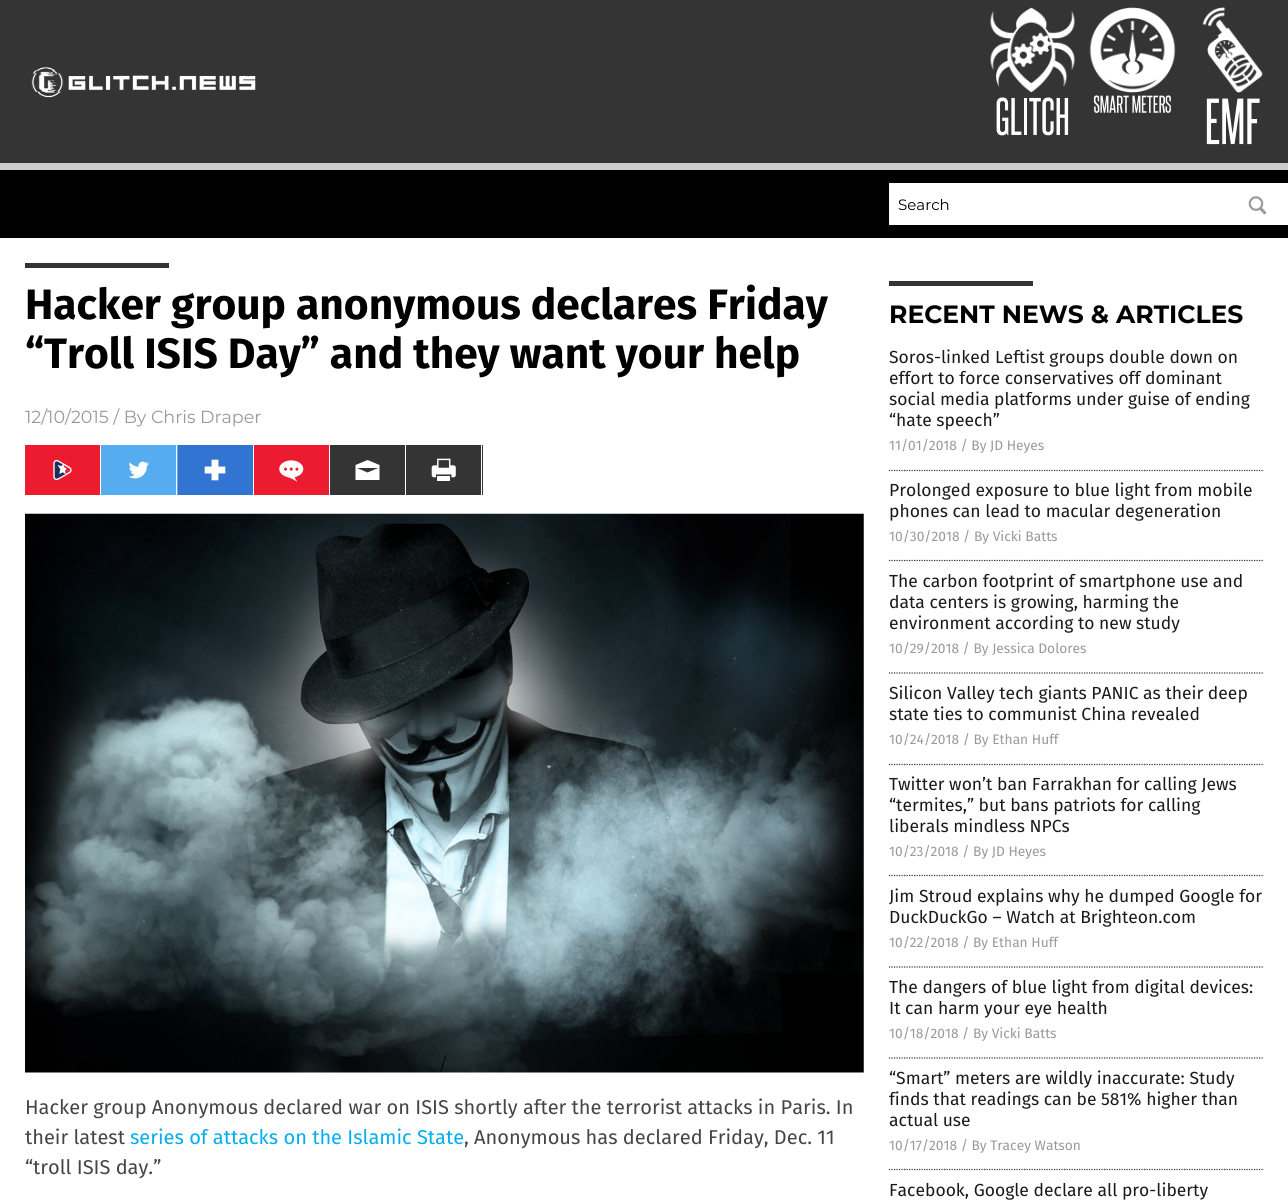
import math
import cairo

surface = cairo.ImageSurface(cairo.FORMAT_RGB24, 1288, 1201)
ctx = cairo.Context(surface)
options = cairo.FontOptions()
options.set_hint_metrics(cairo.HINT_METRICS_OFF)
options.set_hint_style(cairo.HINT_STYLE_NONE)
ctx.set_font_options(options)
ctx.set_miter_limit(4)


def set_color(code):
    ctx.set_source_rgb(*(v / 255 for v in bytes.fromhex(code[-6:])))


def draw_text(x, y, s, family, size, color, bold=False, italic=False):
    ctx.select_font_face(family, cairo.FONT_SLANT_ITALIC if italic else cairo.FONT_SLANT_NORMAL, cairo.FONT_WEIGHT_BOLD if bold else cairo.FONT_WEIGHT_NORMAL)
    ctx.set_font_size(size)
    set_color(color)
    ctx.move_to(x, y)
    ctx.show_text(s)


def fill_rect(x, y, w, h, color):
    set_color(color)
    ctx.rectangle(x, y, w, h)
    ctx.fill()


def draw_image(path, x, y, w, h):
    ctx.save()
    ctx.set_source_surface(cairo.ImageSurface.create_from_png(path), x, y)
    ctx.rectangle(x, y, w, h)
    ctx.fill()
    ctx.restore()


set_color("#000000")
ctx.paint()
fill_rect(0, 0, 1288, 163, "#343434")
draw_image("assets/img1.png", 31, 67, 225, 31)
draw_image("assets/img2.png", 990, 7, 85, 86)
draw_image("assets/img3.png", 996, 97, 73, 39)
draw_image("assets/img4.png", 1089, 7, 87, 86)
draw_image("assets/img5.png", 1093, 95, 78, 18)
draw_image("assets/img6.png", 1202, 7, 61, 86)
draw_image("assets/img7.png", 1206, 98, 54, 47)
fill_rect(0, 163, 1288, 7, "#cccccc")
fill_rect(889, 183, 399, 42, "#ffffff")
draw_text(898, 210, "Search", "Montserrat", 15, "#000000")
draw_image("assets/img8.png", 1248, 196, 19, 19)
fill_rect(0, 238, 1288, 963, "#ffffff")
fill_rect(25, 263, 144, 5, "#333333")
draw_text(25, 319, "Hacker group anonymous declares Friday", "Fira Sans", 42.5, "#000000", bold=True)
draw_text(25, 368, "“Troll ISIS Day” and they want your help", "Fira Sans", 42.5, "#000000", bold=True)
draw_text(25, 423, "12/10/2015 / By Chris Draper", "Montserrat", 17.5, "#999999")
fill_rect(25, 445, 75, 50, "#ed1b2f")
draw_image("assets/img9.png", 53, 460, 19, 21)
fill_rect(101, 445, 77, 50, "#55acef")
draw_image("assets/img10.png", 128, 461, 21, 18)
fill_rect(176, 445, 1, 50, "#ffffff")
fill_rect(178, 445, 75, 50, "#3274d1")
draw_image("assets/img11.png", 204, 459, 22, 22)
fill_rect(254, 445, 75, 50, "#ed1b2f")
draw_image("assets/img12.png", 279, 460, 25, 22)
fill_rect(330, 445, 75, 50, "#343434")
set_color("#ffffff")
ctx.new_path()
ctx.move_to(367.5, 460)
ctx.line_to(355.5, 465)
ctx.line_to(355.5, 480)
ctx.line_to(379.5, 480)
ctx.line_to(379.5, 465)
ctx.close_path()
ctx.move_to(367.5, 472.5)
ctx.line_to(357, 468)
ctx.line_to(378, 468)
ctx.close_path()
ctx.fill()
fill_rect(406, 445, 77, 50, "#343434")
draw_image("assets/img13.png", 431, 458, 25, 23)
fill_rect(481, 445, 1, 50, "#ffffff")
draw_image("assets/img14.png", 25, 513, 839, 560)
draw_text(25, 1114, "Hacker group Anonymous declared war on ISIS shortly after the terrorist attacks in Paris. In", "Fira Sans", 20, "#454545")
draw_text(25, 1144, "their latest", "Fira Sans", 20, "#454545")
draw_text(130, 1144, "series of attacks on the Islamic State", "Fira Sans", 20, "#00aeef")
draw_text(464, 1144, ", Anonymous has declared Friday, Dec. 11", "Fira Sans", 20, "#454545")
draw_text(25, 1174, "“troll ISIS day.”", "Fira Sans", 20, "#454545")
fill_rect(889, 281, 144, 5, "#343434")
draw_text(889, 323, "RECENT NEWS & ARTICLES", "Montserrat", 25, "#000000", bold=True)
ctx.new_path()
ctx.move_to(889, 470.5)
ctx.line_to(1264, 470.5)
set_color("#343434")
ctx.set_line_width(1.2)
ctx.set_dash([1.25, 1.25])
ctx.stroke()
draw_text(889, 363, "Soros-linked Leftist groups double down on", "Fira Sans", 17.5, "#1a1a1a")
draw_text(889, 384, "effort to force conservatives off dominant", "Fira Sans", 17.5, "#1a1a1a")
draw_text(889, 405, "social media platforms under guise of ending", "Fira Sans", 17.5, "#1a1a1a")
draw_text(889, 426, "“hate speech”", "Fira Sans", 17.5, "#1a1a1a")
draw_text(889, 450, "11/01/2018 / By JD Heyes", "Fira Sans", 13.75, "#999999")
ctx.new_path()
ctx.move_to(889, 560.5)
ctx.line_to(1264, 560.5)
set_color("#343434")
ctx.stroke()
draw_text(889, 496, "Prolonged exposure to blue light from mobile", "Fira Sans", 17.5, "#1a1a1a")
draw_text(889, 517, "phones can lead to macular degeneration", "Fira Sans", 17.5, "#1a1a1a")
draw_text(889, 541, "10/30/2018 / By Vicki Batts", "Fira Sans", 13.75, "#999999")
ctx.new_path()
ctx.move_to(889, 673)
ctx.line_to(1264, 673)
set_color("#343434")
ctx.stroke()
draw_text(889, 587, "The carbon footprint of smartphone use and", "Fira Sans", 17.5, "#1a1a1a")
draw_text(889, 608, "data centers is growing, harming the", "Fira Sans", 17.5, "#1a1a1a")
draw_text(889, 629, "environment according to new study", "Fira Sans", 17.5, "#1a1a1a")
draw_text(889, 653, "10/29/2018 / By Jessica Dolores", "Fira Sans", 13.75, "#999999")
ctx.new_path()
ctx.move_to(889, 764.5)
ctx.line_to(1264, 764.5)
set_color("#343434")
ctx.stroke()
draw_text(889, 699, "Silicon Valley tech giants PANIC as their deep", "Fira Sans", 17.5, "#1a1a1a")
draw_text(889, 720, "state ties to communist China revealed", "Fira Sans", 17.5, "#1a1a1a")
draw_text(889, 744, "10/24/2018 / By Ethan Huff", "Fira Sans", 13.75, "#999999")
ctx.new_path()
ctx.move_to(889, 875.5)
ctx.line_to(1264, 875.5)
set_color("#343434")
ctx.stroke()
draw_text(889, 790, "Twitter won’t ban Farrakhan for calling Jews", "Fira Sans", 17.5, "#1a1a1a")
draw_text(889, 811, "“termites,” but bans patriots for calling", "Fira Sans", 17.5, "#1a1a1a")
draw_text(889, 832, "liberals mindless NPCs", "Fira Sans", 17.5, "#1a1a1a")
draw_text(889, 856, "10/23/2018 / By JD Heyes", "Fira Sans", 13.75, "#999999")
ctx.new_path()
ctx.move_to(889, 967)
ctx.line_to(1264, 967)
set_color("#343434")
ctx.stroke()
draw_text(889, 902, "Jim Stroud explains why he dumped Google for", "Fira Sans", 17.5, "#1a1a1a")
draw_text(889, 923, "DuckDuckGo – Watch at Brighteon.com", "Fira Sans", 17.5, "#1a1a1a")
draw_text(889, 947, "10/22/2018 / By Ethan Huff", "Fira Sans", 13.75, "#999999")
ctx.new_path()
ctx.move_to(889, 1058)
ctx.line_to(1264, 1058)
set_color("#343434")
ctx.stroke()
draw_text(889, 993, "The dangers of blue light from digital devices:", "Fira Sans", 17.5, "#1a1a1a")
draw_text(889, 1014, "It can harm your eye health", "Fira Sans", 17.5, "#1a1a1a")
draw_text(889, 1038, "10/18/2018 / By Vicki Batts", "Fira Sans", 13.75, "#999999")
ctx.new_path()
ctx.move_to(889, 1169.5)
ctx.line_to(1264, 1169.5)
set_color("#343434")
ctx.stroke()
draw_text(889, 1084, "“Smart” meters are wildly inaccurate: Study", "Fira Sans", 17.5, "#1a1a1a")
draw_text(889, 1105, "finds that readings can be 581% higher than", "Fira Sans", 17.5, "#1a1a1a")
draw_text(889, 1126, "actual use", "Fira Sans", 17.5, "#1a1a1a")
draw_text(889, 1150, "10/17/2018 / By Tracey Watson", "Fira Sans", 13.75, "#999999")
draw_text(889, 1196, "Facebook, Google declare all pro-liberty", "Fira Sans", 17.5, "#1a1a1a")
surface.write_to_png("output.png")
